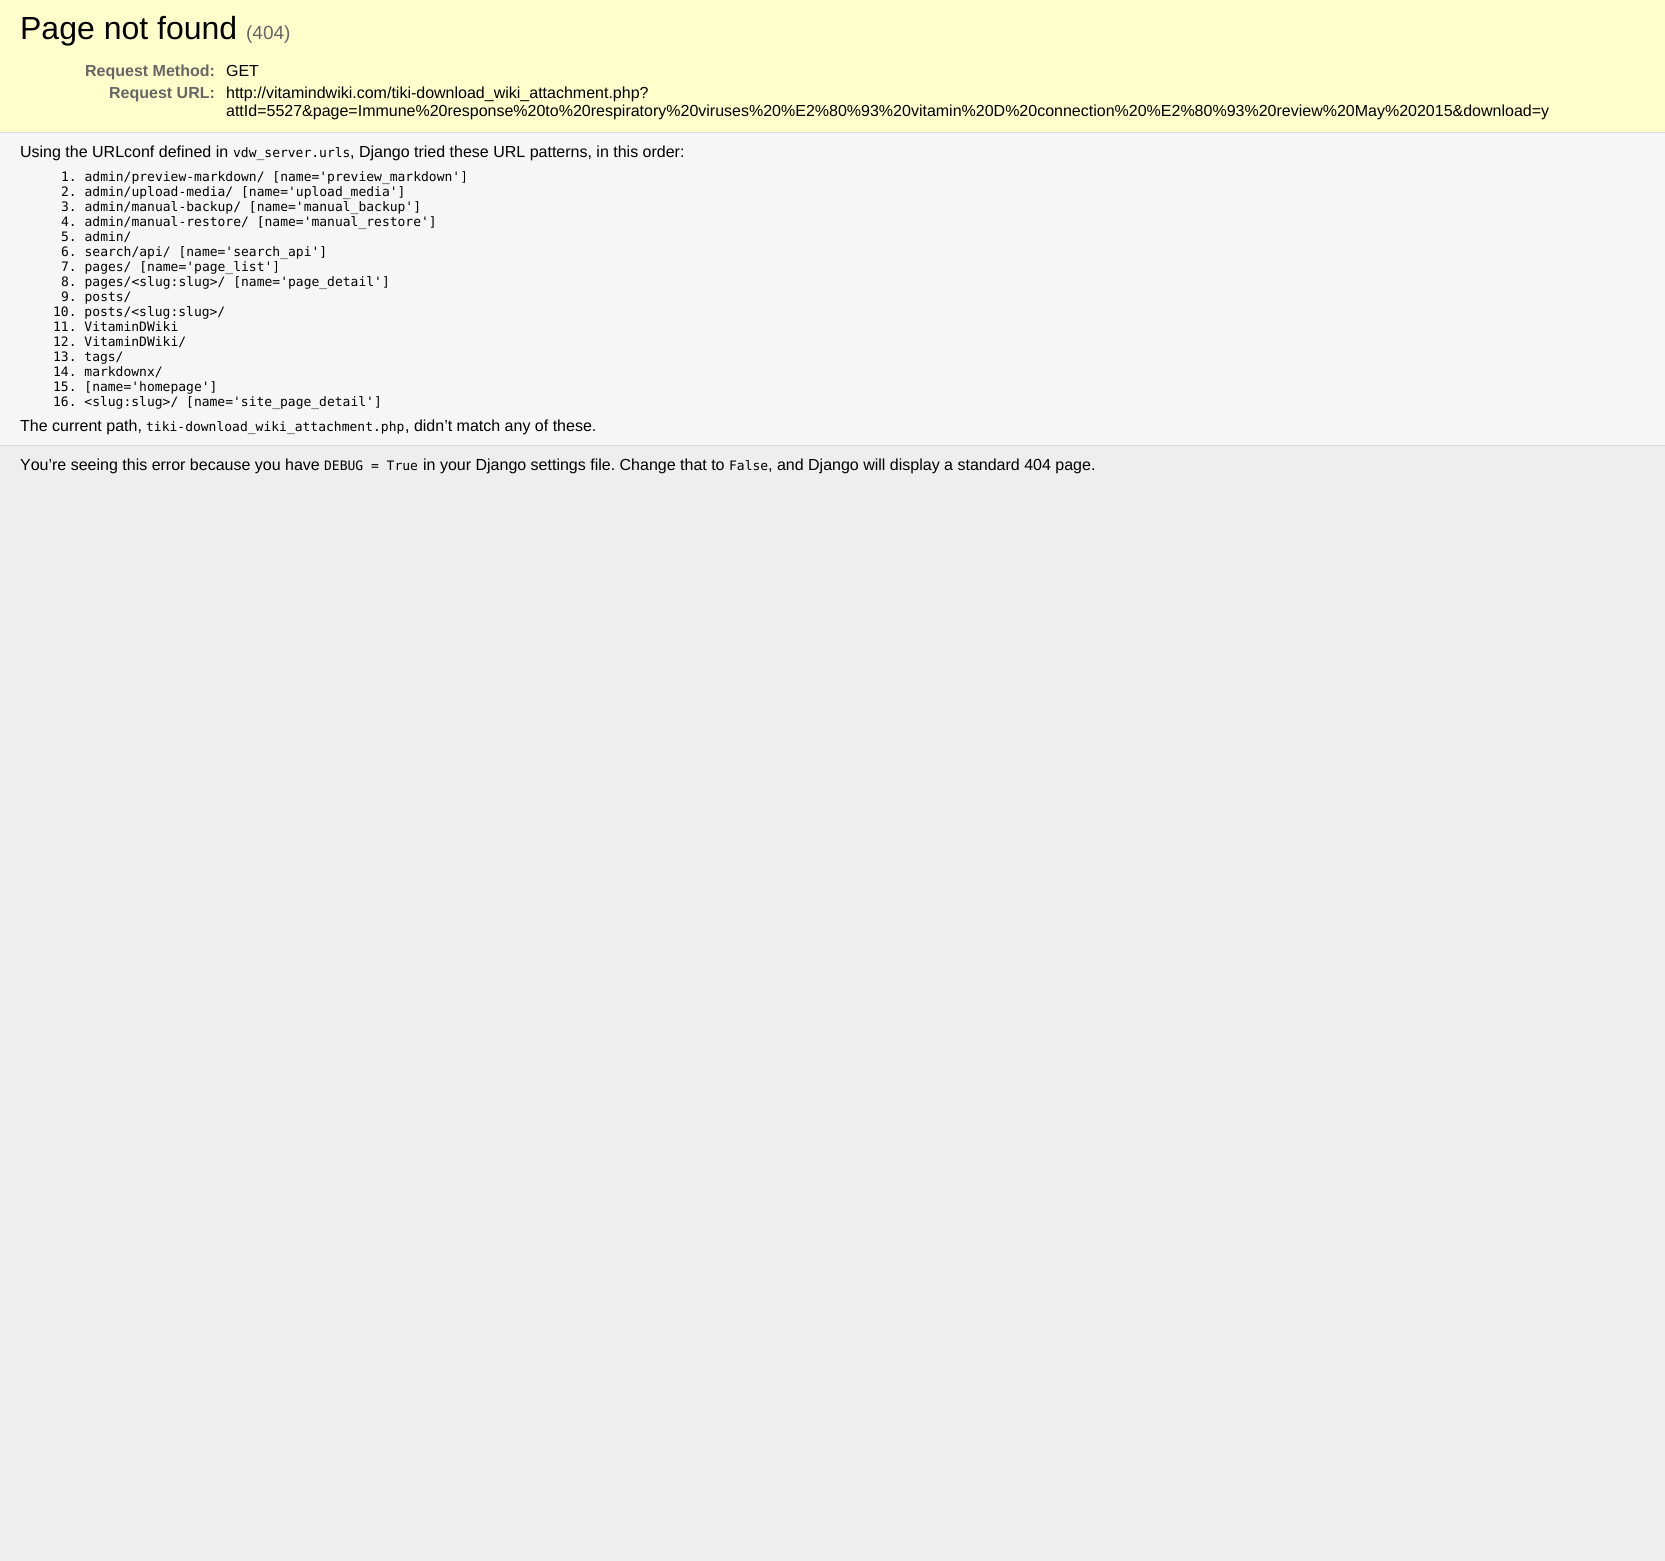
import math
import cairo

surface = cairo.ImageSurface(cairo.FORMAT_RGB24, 1665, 1561)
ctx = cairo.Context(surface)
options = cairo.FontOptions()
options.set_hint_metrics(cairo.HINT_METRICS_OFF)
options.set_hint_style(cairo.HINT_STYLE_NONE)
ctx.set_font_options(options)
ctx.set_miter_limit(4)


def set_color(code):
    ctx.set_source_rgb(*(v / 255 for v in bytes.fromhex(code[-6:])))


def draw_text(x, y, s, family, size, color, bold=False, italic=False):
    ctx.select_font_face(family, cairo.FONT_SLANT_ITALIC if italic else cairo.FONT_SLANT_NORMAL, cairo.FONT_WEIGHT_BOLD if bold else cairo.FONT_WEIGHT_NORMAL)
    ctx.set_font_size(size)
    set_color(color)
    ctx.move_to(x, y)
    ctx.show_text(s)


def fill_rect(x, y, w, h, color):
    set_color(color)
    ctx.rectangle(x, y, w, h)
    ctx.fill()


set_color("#eeeeee")
ctx.paint()
fill_rect(0, 0, 1665, 132, "#ffffcc")
fill_rect(0, 132, 1665, 1, "#dddddd")
draw_text(20, 39, "Page not found", "Liberation Sans", 32, "#000000")
draw_text(246, 39, "(404)", "Liberation Sans", 19, "#666666")
draw_text(85, 76, "Request Method:", "Liberation Sans", 16, "#666666", bold=True)
draw_text(226, 76, "GET", "Liberation Sans", 16, "#000000")
draw_text(109, 98, "Request URL:", "Liberation Sans", 16, "#666666", bold=True)
draw_text(226, 98, "http://vitamindwiki.com/tiki-download_wiki_attachment.php?", "Liberation Sans", 16, "#000000")
draw_text(226, 116, "attId=5527&page=Immune%20response%20to%20respiratory%20viruses%20%E2%80%93%20vitamin%20D%20connection%20%E2%80%93%20review%20May%202015&download=y", "Liberation Sans", 16, "#000000")
fill_rect(0, 133, 1665, 312, "#f6f6f6")
fill_rect(0, 445, 1665, 1, "#dddddd")
draw_text(20, 157, "Using the URLconf defined in", "Liberation Sans", 16, "#000000")
draw_text(233, 157, "vdw_server.urls", "DejaVu Sans Mono", 13, "#000000")
draw_text(350, 157, ", Django tried these URL patterns, in this order:", "Liberation Sans", 16, "#000000")
draw_text(61, 181, "1. admin/preview-markdown/ [name='preview_markdown']", "DejaVu Sans Mono", 13, "#000000")
draw_text(61, 196, "2. admin/upload-media/ [name='upload_media']", "DejaVu Sans Mono", 13, "#000000")
draw_text(61, 211, "3. admin/manual-backup/ [name='manual_backup']", "DejaVu Sans Mono", 13, "#000000")
draw_text(61, 226, "4. admin/manual-restore/ [name='manual_restore']", "DejaVu Sans Mono", 13, "#000000")
draw_text(61, 241, "5. admin/", "DejaVu Sans Mono", 13, "#000000")
draw_text(61, 256, "6. search/api/ [name='search_api']", "DejaVu Sans Mono", 13, "#000000")
draw_text(61, 271, "7. pages/ [name='page_list']", "DejaVu Sans Mono", 13, "#000000")
draw_text(61, 286, "8. pages/<slug:slug>/ [name='page_detail']", "DejaVu Sans Mono", 13, "#000000")
draw_text(61, 301, "9. posts/", "DejaVu Sans Mono", 13, "#000000")
draw_text(53, 316, "10. posts/<slug:slug>/", "DejaVu Sans Mono", 13, "#000000")
draw_text(53, 331, "11. VitaminDWiki", "DejaVu Sans Mono", 13, "#000000")
draw_text(53, 346, "12. VitaminDWiki/", "DejaVu Sans Mono", 13, "#000000")
draw_text(53, 361, "13. tags/", "DejaVu Sans Mono", 13, "#000000")
draw_text(53, 376, "14. markdownx/", "DejaVu Sans Mono", 13, "#000000")
draw_text(53, 391, "15. [name='homepage']", "DejaVu Sans Mono", 13, "#000000")
draw_text(53, 406, "16. <slug:slug>/ [name='site_page_detail']", "DejaVu Sans Mono", 13, "#000000")
draw_text(20, 431, "The current path,", "Liberation Sans", 16, "#000000")
draw_text(146, 431, "tiki-download_wiki_attachment.php", "DejaVu Sans Mono", 13, "#000000")
draw_text(405, 431, ", didn’t match any of these.", "Liberation Sans", 16, "#000000")
draw_text(20, 470, "You’re seeing this error because you have", "Liberation Sans", 16, "#000000")
draw_text(324, 470, "DEBUG = True", "DejaVu Sans Mono", 13, "#000000")
draw_text(423, 470, "in your Django settings file. Change that to", "Liberation Sans", 16, "#000000")
draw_text(729, 470, "False", "DejaVu Sans Mono", 13, "#000000")
draw_text(768, 470, ", and Django will display a standard 404 page.", "Liberation Sans", 16, "#000000")
surface.write_to_png("output.png")
